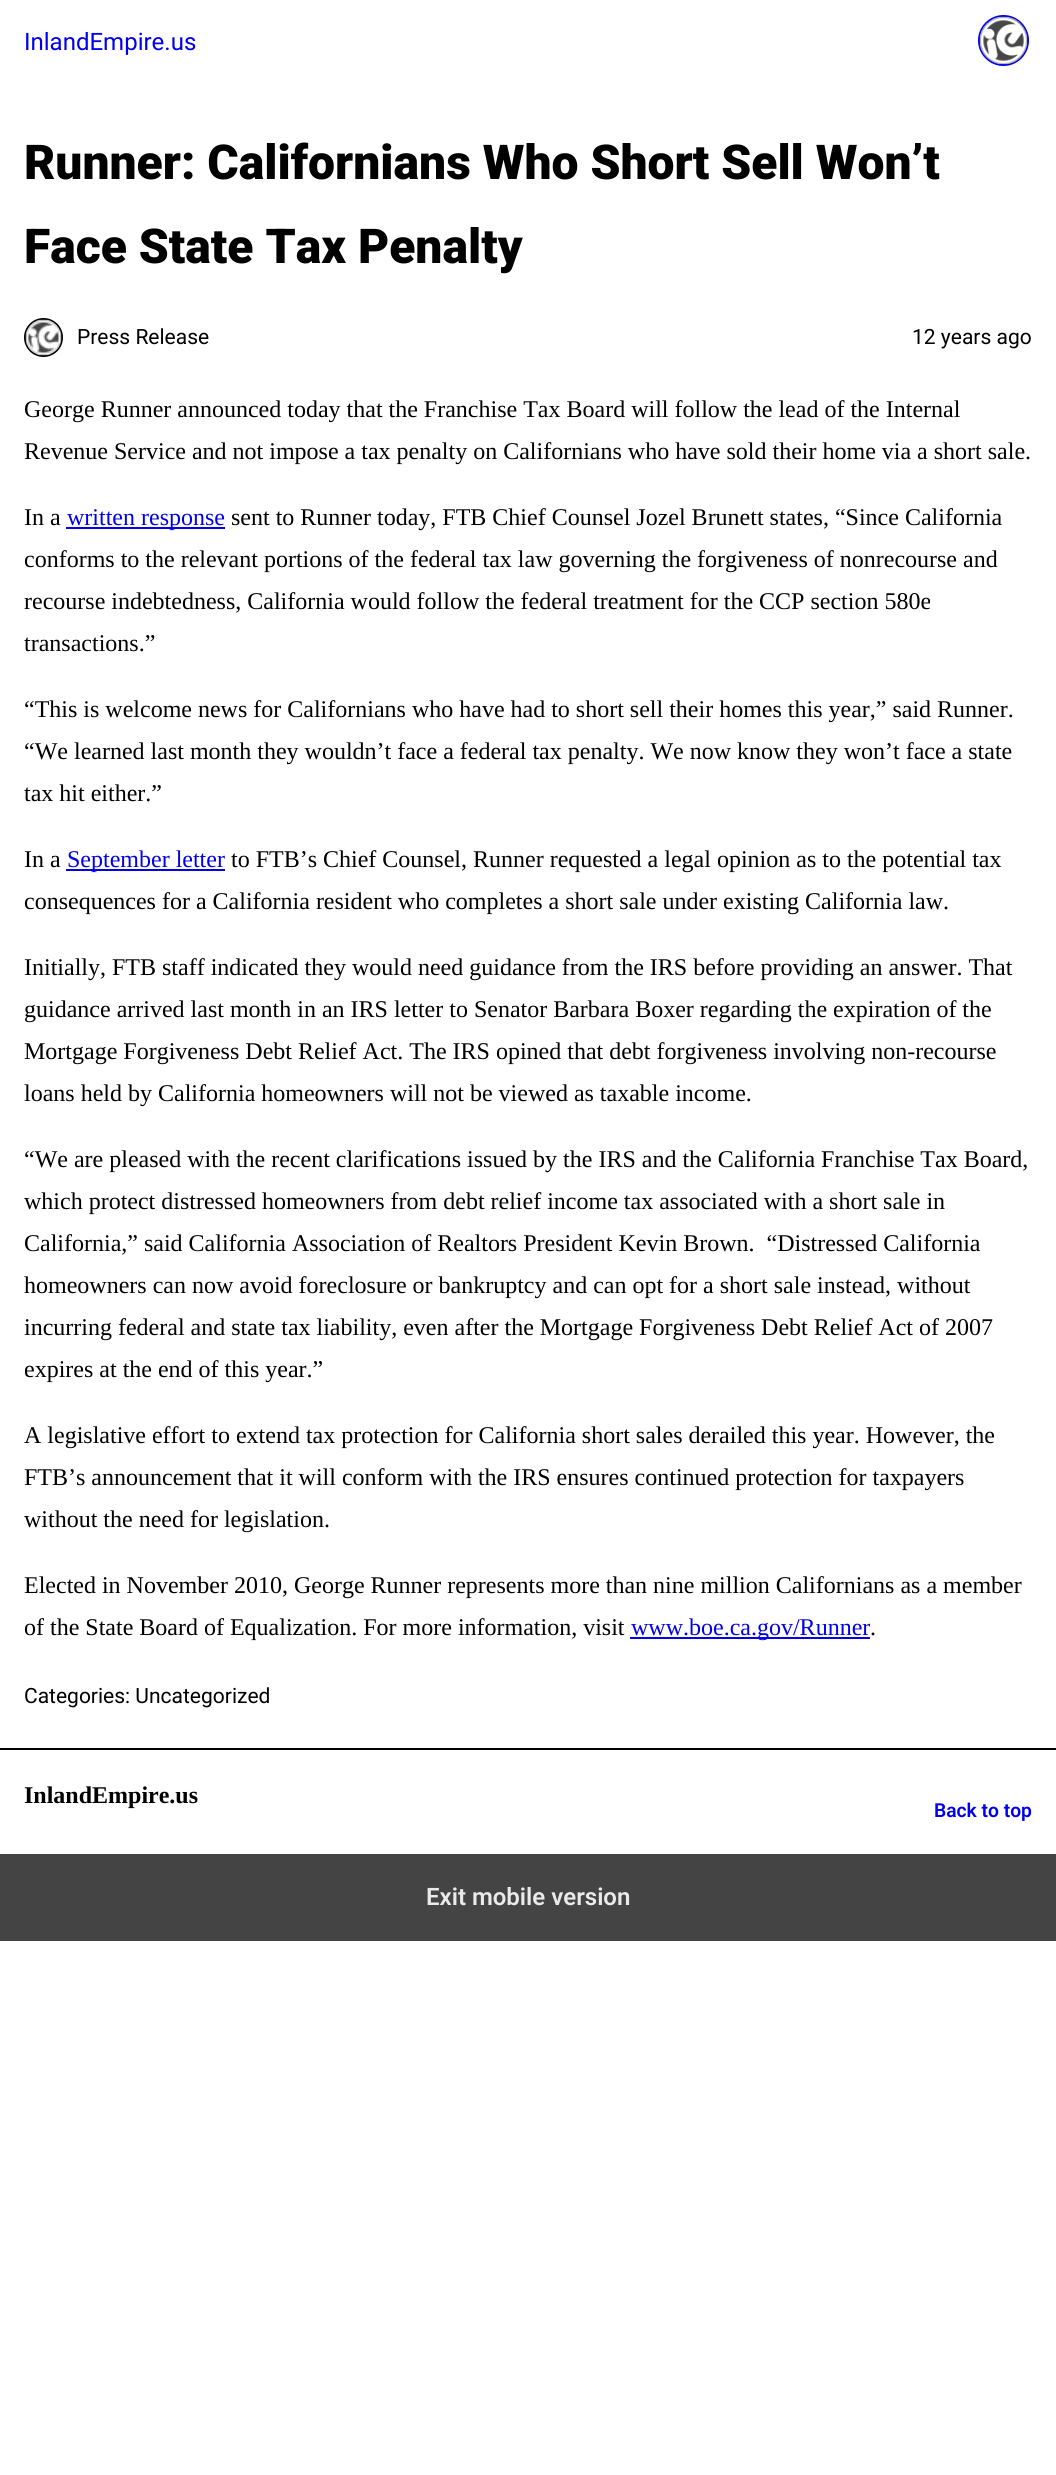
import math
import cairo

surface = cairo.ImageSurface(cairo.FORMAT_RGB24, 1056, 2475)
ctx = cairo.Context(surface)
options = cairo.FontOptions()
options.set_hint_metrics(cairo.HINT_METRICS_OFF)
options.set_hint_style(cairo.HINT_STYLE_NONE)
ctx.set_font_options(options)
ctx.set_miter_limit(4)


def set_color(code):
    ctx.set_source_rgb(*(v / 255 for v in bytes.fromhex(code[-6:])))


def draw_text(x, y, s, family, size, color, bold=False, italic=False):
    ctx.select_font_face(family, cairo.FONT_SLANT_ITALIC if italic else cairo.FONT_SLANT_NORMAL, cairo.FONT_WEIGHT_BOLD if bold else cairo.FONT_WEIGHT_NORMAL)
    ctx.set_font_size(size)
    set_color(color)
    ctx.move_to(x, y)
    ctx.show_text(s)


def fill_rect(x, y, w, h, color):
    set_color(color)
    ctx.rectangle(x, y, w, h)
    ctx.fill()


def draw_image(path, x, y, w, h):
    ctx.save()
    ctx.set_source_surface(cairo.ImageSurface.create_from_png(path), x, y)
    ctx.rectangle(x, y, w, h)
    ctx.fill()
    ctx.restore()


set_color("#ffffff")
ctx.paint()
draw_text(24, 50, "InlandEmpire.us", "Roboto", 24, "#0000ee")
ctx.new_path()
ctx.arc(1003.5, 40.5, 24.5, 0, 2 * math.pi)
ctx.stroke()
draw_image("assets/img1.png", 979, 16, 49, 49)
draw_text(24, 179, "Runner: Californians Who Short Sell Won’t", "Roboto Black", 48, "#000000")
draw_text(24, 263, "Face State Tax Penalty", "Roboto Black", 48, "#000000")
ctx.new_path()
ctx.arc(43.5, 337.5, 18.5, 0, 2 * math.pi)
ctx.stroke()
draw_image("assets/img2.png", 25, 319, 37, 37)
draw_text(77, 344, "Press Release", "Roboto", 21, "#000000")
draw_text(912, 344, "12 years ago", "Roboto", 21, "#000000")
draw_text(24, 417, "George Runner announced today that the Franchise Tax Board will follow the lead of the Internal", "Liberation Serif", 24, "#000000")
draw_text(24, 459, "Revenue Service and not impose a tax penalty on Californians who have sold their home via a short sale.", "Liberation Serif", 24, "#000000")
draw_text(24, 525, "In a", "Liberation Serif", 24, "#000000")
fill_rect(66, 527, 159, 2, "#0000ee")
draw_text(67, 525, "written response", "Liberation Serif", 24, "#0000ee")
draw_text(231, 525, "sent to Runner today, FTB Chief Counsel Jozel Brunett states, “Since California", "Liberation Serif", 24, "#000000")
draw_text(24, 567, "conforms to the relevant portions of the federal tax law governing the forgiveness of nonrecourse and", "Liberation Serif", 24, "#000000")
draw_text(24, 609, "recourse indebtedness, California would follow the federal treatment for the CCP section 580e", "Liberation Serif", 24, "#000000")
draw_text(24, 651, "transactions.”", "Liberation Serif", 24, "#000000")
draw_text(24, 717, "“This is welcome news for Californians who have had to short sell their homes this year,” said Runner.", "Liberation Serif", 24, "#000000")
draw_text(24, 759, "“We learned last month they wouldn’t face a federal tax penalty. We now know they won’t face a state", "Liberation Serif", 24, "#000000")
draw_text(24, 801, "tax hit either.”", "Liberation Serif", 24, "#000000")
draw_text(24, 867, "In a", "Liberation Serif", 24, "#000000")
fill_rect(66, 869, 159, 2, "#0000ee")
draw_text(67, 867, "September letter", "Liberation Serif", 24, "#0000ee")
draw_text(231, 867, "to FTB’s Chief Counsel, Runner requested a legal opinion as to the potential tax", "Liberation Serif", 24, "#000000")
draw_text(24, 909, "consequences for a California resident who completes a short sale under existing California law.", "Liberation Serif", 24, "#000000")
draw_text(24, 975, "Initially, FTB staff indicated they would need guidance from the IRS before providing an answer. That", "Liberation Serif", 24, "#000000")
draw_text(24, 1017, "guidance arrived last month in an IRS letter to Senator Barbara Boxer regarding the expiration of the", "Liberation Serif", 24, "#000000")
draw_text(24, 1059, "Mortgage Forgiveness Debt Relief Act. The IRS opined that debt forgiveness involving non-recourse", "Liberation Serif", 24, "#000000")
draw_text(24, 1101, "loans held by California homeowners will not be viewed as taxable income.", "Liberation Serif", 24, "#000000")
draw_text(24, 1167, "“We are pleased with the recent clarifications issued by the IRS and the California Franchise Tax Board,", "Liberation Serif", 24, "#000000")
draw_text(24, 1209, "which protect distressed homeowners from debt relief income tax associated with a short sale in", "Liberation Serif", 24, "#000000")
draw_text(24, 1251, "California,” said California Association of Realtors President Kevin Brown.  “Distressed California", "Liberation Serif", 24, "#000000")
draw_text(24, 1293, "homeowners can now avoid foreclosure or bankruptcy and can opt for a short sale instead, without", "Liberation Serif", 24, "#000000")
draw_text(24, 1335, "incurring federal and state tax liability, even after the Mortgage Forgiveness Debt Relief Act of 2007", "Liberation Serif", 24, "#000000")
draw_text(24, 1377, "expires at the end of this year.”", "Liberation Serif", 24, "#000000")
draw_text(24, 1443, "A legislative effort to extend tax protection for California short sales derailed this year. However, the", "Liberation Serif", 24, "#000000")
draw_text(24, 1485, "FTB’s announcement that it will conform with the IRS ensures continued protection for taxpayers", "Liberation Serif", 24, "#000000")
draw_text(24, 1527, "without the need for legislation.", "Liberation Serif", 24, "#000000")
draw_text(24, 1593, "Elected in November 2010, George Runner represents more than nine million Californians as a member", "Liberation Serif", 24, "#000000")
draw_text(24, 1635, "of the State Board of Equalization. For more information, visit", "Liberation Serif", 24, "#000000")
fill_rect(630, 1637, 240, 2, "#0000ee")
draw_text(631, 1635, "www.boe.ca.gov/Runner", "Liberation Serif", 24, "#0000ee")
draw_text(870, 1635, ".", "Liberation Serif", 24, "#000000")
draw_text(24, 1703, "Categories: Uncategorized", "Roboto", 21, "#000000")
fill_rect(0, 1748, 1056, 2, "#000000")
draw_text(24, 1803, "InlandEmpire.us", "Liberation Serif", 24, "#000000", bold=True)
draw_text(934, 1817, "Back to top", "Roboto SemiBold", 19.25, "#0000ee")
fill_rect(0, 1854, 1056, 87, "#444444")
draw_text(426, 1905, "Exit mobile version", "Roboto SemiBold", 24, "#eaeaea")
surface.write_to_png("output.png")
